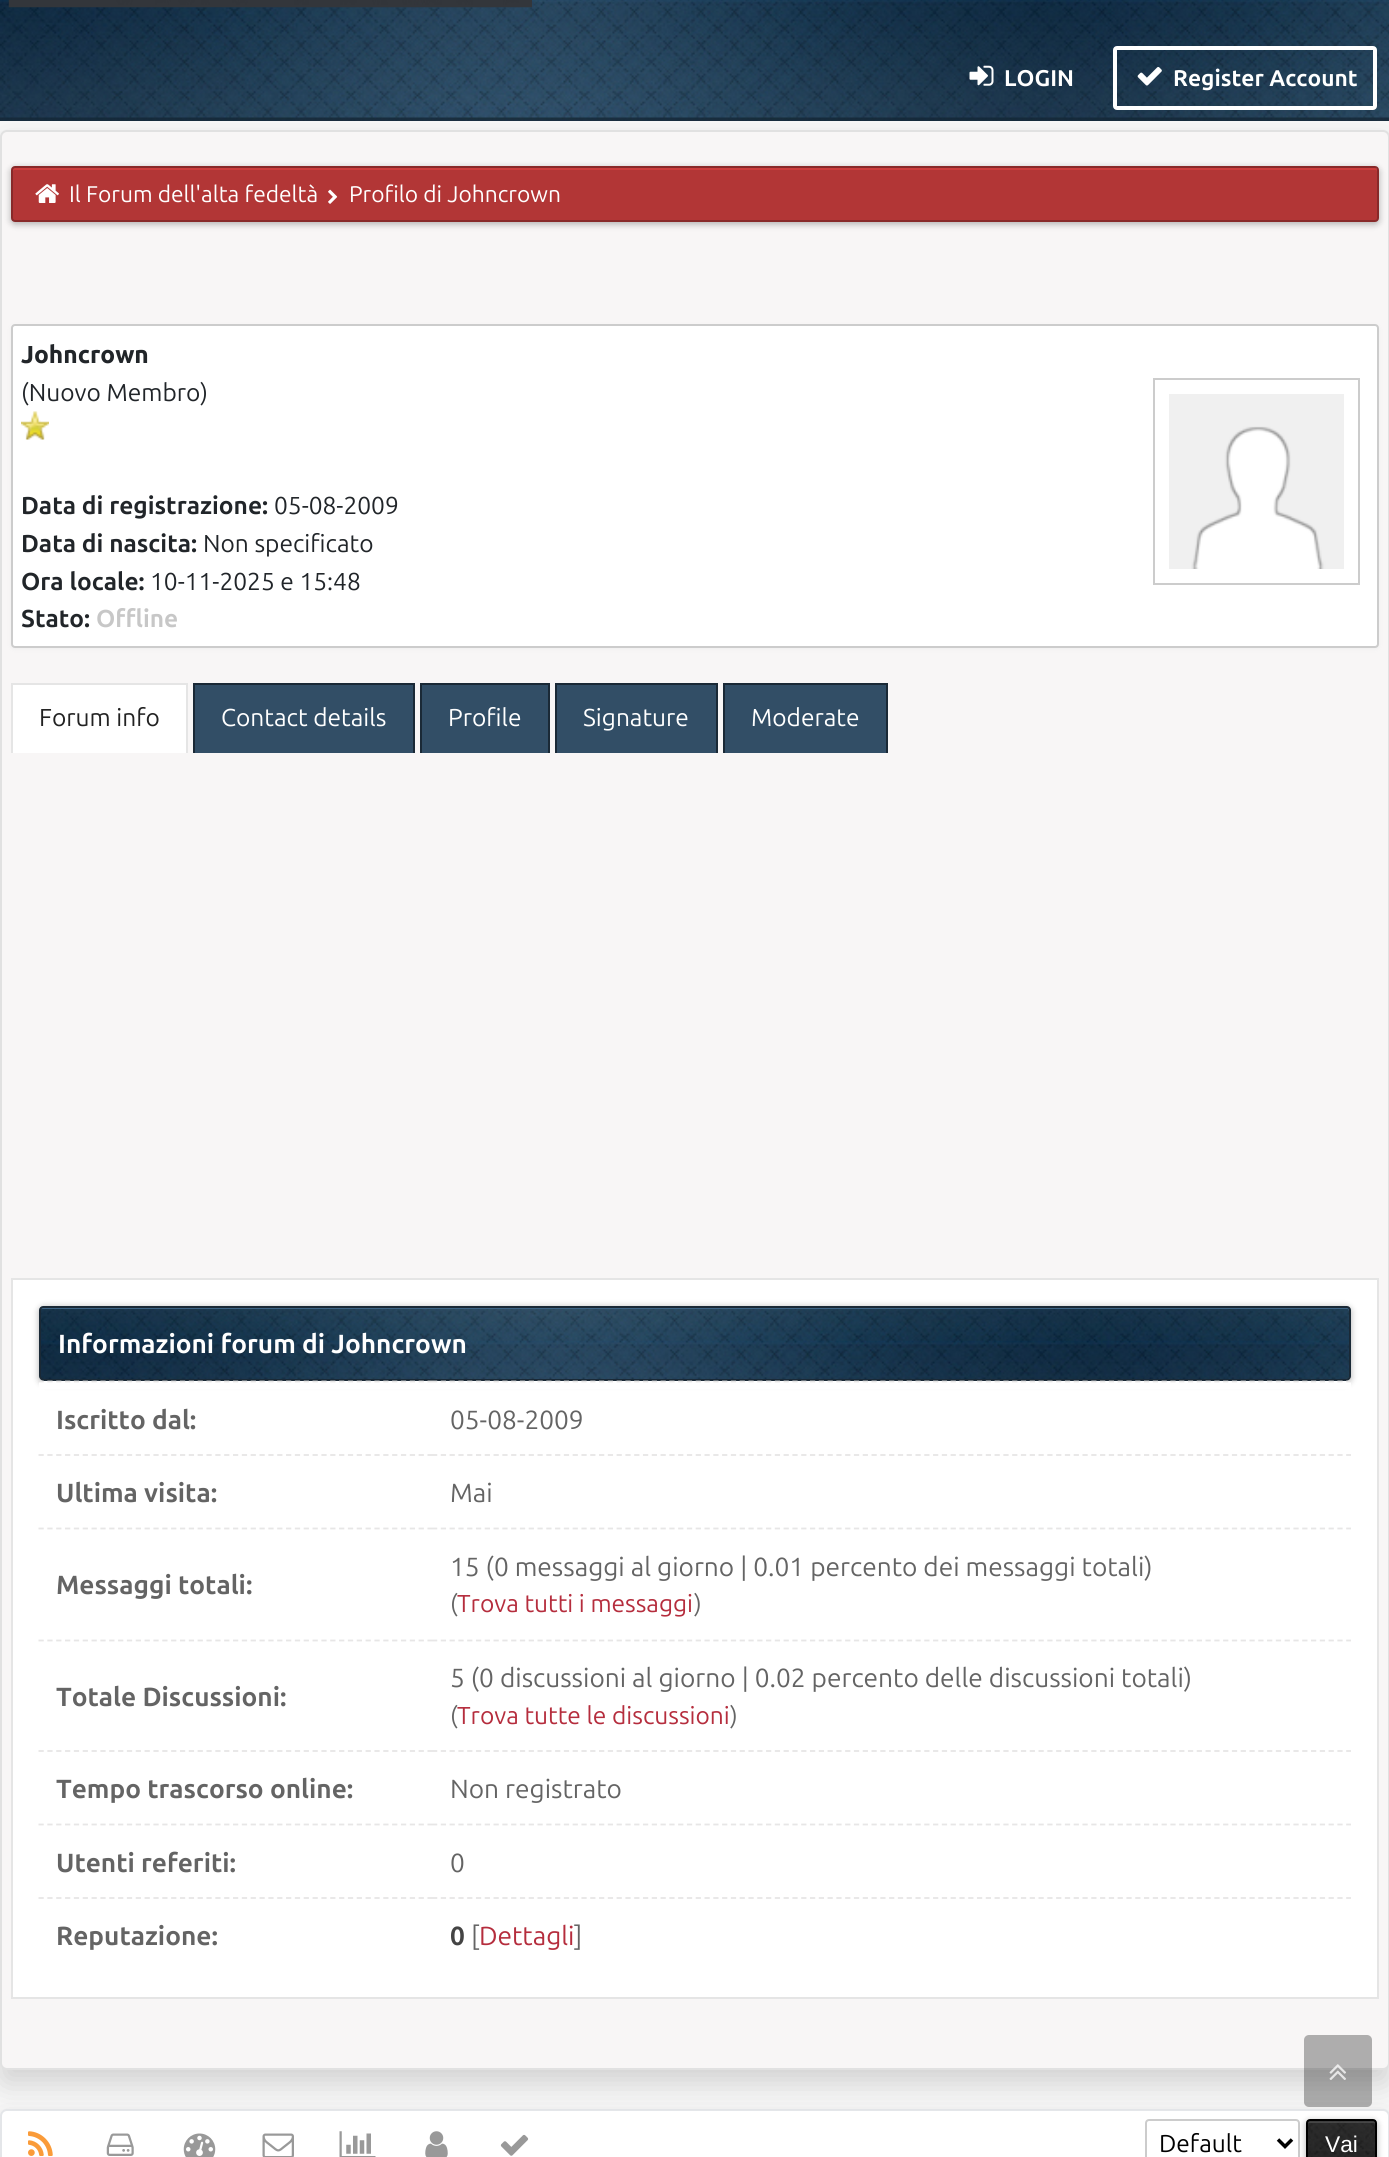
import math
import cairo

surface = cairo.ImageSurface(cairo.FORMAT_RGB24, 1389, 2157)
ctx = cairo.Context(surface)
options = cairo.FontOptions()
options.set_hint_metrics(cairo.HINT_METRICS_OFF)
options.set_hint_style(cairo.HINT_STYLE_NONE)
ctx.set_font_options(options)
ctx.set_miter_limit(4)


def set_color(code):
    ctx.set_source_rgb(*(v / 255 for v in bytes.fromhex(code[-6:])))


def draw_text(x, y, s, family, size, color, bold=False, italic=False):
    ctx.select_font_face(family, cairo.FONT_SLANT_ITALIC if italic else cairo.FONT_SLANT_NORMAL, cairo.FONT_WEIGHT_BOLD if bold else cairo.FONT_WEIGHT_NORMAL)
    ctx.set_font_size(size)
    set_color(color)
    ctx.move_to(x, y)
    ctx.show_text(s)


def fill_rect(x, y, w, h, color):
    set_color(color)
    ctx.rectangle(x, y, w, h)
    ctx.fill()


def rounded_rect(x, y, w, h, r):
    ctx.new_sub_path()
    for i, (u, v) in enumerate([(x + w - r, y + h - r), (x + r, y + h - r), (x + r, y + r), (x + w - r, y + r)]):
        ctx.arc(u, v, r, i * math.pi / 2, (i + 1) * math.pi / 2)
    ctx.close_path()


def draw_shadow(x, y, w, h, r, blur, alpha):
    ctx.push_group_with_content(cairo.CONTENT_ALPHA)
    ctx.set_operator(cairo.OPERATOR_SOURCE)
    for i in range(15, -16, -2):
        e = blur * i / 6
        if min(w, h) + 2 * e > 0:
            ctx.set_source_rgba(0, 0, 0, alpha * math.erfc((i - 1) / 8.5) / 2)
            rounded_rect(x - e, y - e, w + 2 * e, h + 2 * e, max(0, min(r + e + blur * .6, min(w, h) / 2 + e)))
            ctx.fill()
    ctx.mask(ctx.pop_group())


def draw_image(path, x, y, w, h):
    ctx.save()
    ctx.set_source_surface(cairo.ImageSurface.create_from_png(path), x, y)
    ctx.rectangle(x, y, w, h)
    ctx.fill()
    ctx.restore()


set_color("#f7f7f7")
ctx.paint()
draw_image("assets/img1.png", 0, 0, 1389, 121)
draw_image("assets/img2.png", 8, 0, 524, 8)
draw_image("assets/img3.png", 969, 65, 25, 21)
draw_text(1004, 86, "LOGIN", "Ubuntu", 22.75, "#ffffff", bold=True)
rounded_rect(1115, 48, 260, 60, 2)
ctx.set_line_width(4)
ctx.stroke()
draw_image("assets/img4.png", 1137, 67, 25, 19)
draw_text(1173, 86, "Register Account", "Ubuntu", 22.75, "#ffffff", bold=True)
set_color("#000000")
draw_shadow(0, 2123, 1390, 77, 7, 14, 0.15)
set_color("#ffffff")
rounded_rect(1, 2110, 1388, 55, 6)
ctx.fill_preserve()
set_color("#e4e6e9")
ctx.set_line_width(2)
ctx.stroke()
rounded_rect(1146, 2120, 153, 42, 3)
set_color("#cccccc")
ctx.stroke()
set_color("#000000")
draw_shadow(0, 144, 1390, 1940, 7, 14, 0.15)
set_color("#f8f6f6")
rounded_rect(1, 131, 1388, 1938, 6)
ctx.fill_preserve()
set_color("#e1e1e1")
ctx.stroke()
set_color("#000000")
draw_shadow(11, 168, 1368, 56, 4, 3.5, 0.3)
set_color("#b23636")
rounded_rect(12, 168, 1365, 53, 2)
ctx.fill()
set_color("#cc3d3d")
ctx.new_path()
ctx.move_to(14, 170)
ctx.line_to(1376, 170)
ctx.line_to(1377, 171)
ctx.curve_to(1377, 170, 1377, 168, 1375, 168)
ctx.line_to(14, 168)
ctx.curve_to(11, 168, 12, 174, 12, 178)
ctx.line_to(12, 219)
ctx.line_to(13, 171)
ctx.close_path()
ctx.fill()
rounded_rect(12, 167, 1366, 54, 3)
set_color("#882929")
ctx.stroke()
draw_image("assets/img5.png", 35, 184, 24, 19)
draw_text(69, 202, "Il Forum dell'alta fedeltà", "Ubuntu", 22.75, "#ffffff")
draw_image("assets/img6.png", 328, 189, 10, 15)
draw_text(349, 202, "Profilo di Johncrown", "Ubuntu", 22.75, "#ffffff")
set_color("#eeeeee")
draw_shadow(11, 326, 1368, 323, 4, 2, 1)
set_color("#ffffff")
rounded_rect(12, 325, 1366, 322, 3)
ctx.fill_preserve()
set_color("#cccccc")
ctx.stroke()
draw_text(21, 363, "Johncrown", "Ubuntu ExtraBold", 24.5, "#212529")
draw_text(21, 401, "(Nuovo Membro)", "Ubuntu", 24.5, "#212529")
draw_image("assets/img7.png", 21, 411, 28, 29)
draw_text(21, 514, "Data di registrazione:", "Ubuntu", 24.5, "#212529", bold=True)
draw_text(274, 514, "05-08-2009", "Ubuntu", 24.5, "#212529")
draw_text(21, 552, "Data di nascita:", "Ubuntu", 24.5, "#212529", bold=True)
draw_text(203, 552, "Non specificato", "Ubuntu", 24.5, "#212529")
draw_text(21, 590, "Ora locale:", "Ubuntu", 24.5, "#212529", bold=True)
draw_text(150, 590, "10-11-2025 e 15:48", "Ubuntu", 24.5, "#212529")
draw_text(21, 627, "Stato:", "Ubuntu", 24.5, "#212529", bold=True)
draw_text(96, 627, "Offline", "Ubuntu", 24.5, "#c7c7c7", bold=True)
ctx.rectangle(1154, 379, 205, 205)
set_color("#cccccc")
ctx.stroke()
draw_image("assets/img8.png", 1169, 394, 175, 175)
fill_rect(13, 685, 173, 68, "#ffffff")
fill_rect(11, 683, 176, 2, "#e5e5e5")
fill_rect(186, 683, 2, 70, "#e5e5e5")
fill_rect(11, 683, 2, 70, "#e5e5e5")
draw_text(39, 726, "Forum info", "Ubuntu", 24.5, "#222222")
fill_rect(195, 685, 218, 68, "#324e66")
fill_rect(193, 683, 222, 2, "#1a2936")
fill_rect(413, 683, 2, 70, "#1a2936")
fill_rect(193, 683, 2, 70, "#1a2936")
draw_text(221, 726, "Contact details", "Ubuntu", 24.5, "#ffffff")
fill_rect(422, 685, 126, 68, "#324e66")
fill_rect(420, 683, 130, 2, "#1a2936")
fill_rect(548, 683, 2, 70, "#1a2936")
fill_rect(420, 683, 2, 70, "#1a2936")
draw_text(448, 726, "Profile", "Ubuntu", 24.5, "#ffffff")
fill_rect(557, 685, 159, 68, "#324e66")
fill_rect(555, 683, 163, 2, "#1a2936")
fill_rect(716, 683, 2, 70, "#1a2936")
fill_rect(555, 683, 2, 70, "#1a2936")
draw_text(583, 726, "Signature", "Ubuntu", 24.5, "#ffffff")
fill_rect(725, 685, 161, 68, "#324e66")
fill_rect(723, 683, 164, 2, "#1a2936")
fill_rect(886, 683, 2, 70, "#1a2936")
fill_rect(723, 683, 2, 70, "#1a2936")
draw_text(751, 726, "Moderate", "Ubuntu", 24.5, "#ffffff")
ctx.rectangle(12, 1279, 1366, 719)
ctx.fill_preserve()
set_color("#e5e5e5")
ctx.stroke()
set_color("#000000")
draw_shadow(39, 1307, 1312, 76, 5, 3.5, 0.3)
draw_image("assets/img9.png", 41, 1308, 1308, 71)
set_color("#3d6485")
ctx.new_path()
ctx.move_to(42, 1309)
ctx.line_to(1348, 1309)
ctx.line_to(1349, 1311)
ctx.curve_to(1349, 1309, 1349, 1307, 1347, 1307)
ctx.line_to(42, 1307)
ctx.curve_to(40, 1307, 40, 1309, 40, 1311)
ctx.curve_to(40, 1310, 41, 1309, 42, 1309)
ctx.close_path()
ctx.fill()
ctx.new_path()
ctx.move_to(43, 1307)
ctx.line_to(1347, 1307)
ctx.curve_to(1348.5, 1307, 1350, 1308.5, 1350, 1310)
ctx.line_to(1350, 1376)
ctx.curve_to(1350, 1378, 1348, 1380, 1346, 1380)
ctx.line_to(44, 1380)
ctx.curve_to(42, 1380, 40, 1378, 40, 1376)
ctx.line_to(40, 1310)
ctx.curve_to(40, 1308.5, 41.5, 1307, 43, 1307)
ctx.close_path()
set_color("#1a2936")
ctx.stroke()
draw_text(58, 1353, "Informazioni forum di Johncrown", "Ubuntu", 26.25, "#ffffff", bold=True)
fill_rect(39, 1381, 1312, 8, "#ffffff")
ctx.new_path()
ctx.move_to(38.5, 1381.5)
ctx.line_to(432, 1381.5)
set_color("#e7e6e6")
ctx.set_line_width(1.8)
ctx.set_dash([5.25, 3.59])
ctx.stroke()
draw_text(56, 1429, "Iscritto dal:", "Ubuntu", 26.25, "#646464", bold=True)
ctx.new_path()
ctx.move_to(432, 1381.5)
ctx.line_to(1351, 1381.5)
set_color("#e7e6e6")
ctx.set_dash([5.25, 3.54])
ctx.stroke()
draw_text(450, 1429, "05-08-2009", "Ubuntu", 26.25, "#646464")
ctx.new_path()
ctx.move_to(38.5, 1455)
ctx.line_to(432, 1455)
set_color("#e7e6e6")
ctx.set_dash([5.25, 3.59])
ctx.stroke()
draw_text(56, 1502, "Ultima visita:", "Ubuntu", 26.25, "#646464", bold=True)
ctx.new_path()
ctx.move_to(432, 1455)
ctx.line_to(1351, 1455)
set_color("#e7e6e6")
ctx.set_dash([5.25, 3.54])
ctx.stroke()
draw_text(450, 1502, "Mai", "Ubuntu", 26.25, "#646464")
ctx.new_path()
ctx.move_to(38.5, 1528.5)
ctx.line_to(432, 1528.5)
set_color("#e7e6e6")
ctx.set_dash([5.25, 3.59])
ctx.stroke()
draw_text(56, 1594, "Messaggi totali:", "Ubuntu", 26.25, "#646464", bold=True)
ctx.new_path()
ctx.move_to(432, 1528.5)
ctx.line_to(1351, 1528.5)
set_color("#e7e6e6")
ctx.set_dash([5.25, 3.54])
ctx.stroke()
draw_text(450, 1576, "15 (0 messaggi al giorno | 0.01 percento dei messaggi totali)", "Ubuntu", 26.25, "#646464")
draw_text(450, 1612, "(", "Ubuntu", 24.5, "#646464")
draw_text(457, 1612, "Trova tutti i messaggi", "Ubuntu", 24.5, "#b52d3d")
draw_text(694, 1612, ")", "Ubuntu", 24.5, "#646464")
ctx.new_path()
ctx.move_to(38.5, 1640.5)
ctx.line_to(432, 1640.5)
set_color("#e7e6e6")
ctx.set_dash([5.25, 3.59])
ctx.stroke()
draw_text(56, 1706, "Totale Discussioni:", "Ubuntu", 26.25, "#646464", bold=True)
ctx.new_path()
ctx.move_to(432, 1640.5)
ctx.line_to(1351, 1640.5)
set_color("#e7e6e6")
ctx.set_dash([5.25, 3.54])
ctx.stroke()
draw_text(450, 1687, "5 (0 discussioni al giorno | 0.02 percento delle discussioni totali)", "Ubuntu", 26.25, "#646464")
draw_text(450, 1724, "(", "Ubuntu", 24.5, "#646464")
draw_text(457, 1724, "Trova tutte le discussioni", "Ubuntu", 24.5, "#b52d3d")
draw_text(730, 1724, ")", "Ubuntu", 24.5, "#646464")
ctx.new_path()
ctx.move_to(38.5, 1751)
ctx.line_to(432, 1751)
set_color("#e7e6e6")
ctx.set_dash([5.25, 3.59])
ctx.stroke()
draw_text(56, 1798, "Tempo trascorso online:", "Ubuntu", 26.25, "#646464", bold=True)
ctx.new_path()
ctx.move_to(432, 1751)
ctx.line_to(1351, 1751)
set_color("#e7e6e6")
ctx.set_dash([5.25, 3.54])
ctx.stroke()
draw_text(450, 1798, "Non registrato", "Ubuntu", 26.25, "#646464")
ctx.new_path()
ctx.move_to(38.5, 1824.5)
ctx.line_to(432, 1824.5)
set_color("#e7e6e6")
ctx.set_dash([5.25, 3.59])
ctx.stroke()
draw_text(56, 1872, "Utenti referiti:", "Ubuntu", 26.25, "#646464", bold=True)
ctx.new_path()
ctx.move_to(432, 1824.5)
ctx.line_to(1351, 1824.5)
set_color("#e7e6e6")
ctx.set_dash([5.25, 3.54])
ctx.stroke()
draw_text(450, 1872, "0", "Ubuntu", 26.25, "#646464")
ctx.new_path()
ctx.move_to(38.5, 1898)
ctx.line_to(432, 1898)
set_color("#e7e6e6")
ctx.set_dash([5.25, 3.59])
ctx.stroke()
draw_text(56, 1945, "Reputazione:", "Ubuntu", 26.25, "#646464", bold=True)
ctx.new_path()
ctx.move_to(432, 1898)
ctx.line_to(1351, 1898)
set_color("#e7e6e6")
ctx.set_dash([5.25, 3.54])
ctx.stroke()
draw_text(450, 1945, "0", "Ubuntu", 26.25, "#444444", bold=True)
draw_text(471, 1945, "[", "Ubuntu", 26.25, "#646464")
draw_text(479, 1945, "Dettagli", "Ubuntu", 26.25, "#b52d3d")
draw_text(574, 1945, "]", "Ubuntu", 26.25, "#646464")
draw_image("assets/img10.png", 28, 2131, 25, 25)
draw_image("assets/img11.png", 106, 2133, 28, 23)
draw_image("assets/img12.png", 183, 2133, 33, 24)
draw_image("assets/img13.png", 262, 2133, 32, 24)
draw_image("assets/img14.png", 339, 2131, 37, 26)
draw_image("assets/img15.png", 425, 2131, 23, 26)
draw_image("assets/img16.png", 500, 2134, 29, 22)
ctx.new_path()
ctx.move_to(1278, 2139.5)
ctx.line_to(1285, 2146.5)
ctx.line_to(1292, 2139.5)
set_color("#000000")
ctx.set_line_width(3.5)
ctx.set_dash([])
ctx.stroke()
draw_text(1159, 2152, "Default", "Ubuntu", 24.5, "#000000")
set_color("#000000")
draw_shadow(1306, 2121, 71, 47, 4, 3.5, 0.3)
set_color("#161617")
rounded_rect(1307, 2121, 69, 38, 2)
ctx.fill()
draw_image("assets/img17.png", 1308, 2121, 67, 36)
ctx.set_source_rgba(1, 1, 1, 0.13)
ctx.new_path()
ctx.move_to(1309, 2123)
ctx.line_to(1374, 2123)
ctx.line_to(1376, 2124)
ctx.curve_to(1376, 2118, 1367, 2121, 1363, 2121)
ctx.line_to(1320, 2121)
ctx.curve_to(1316, 2121, 1307, 2118, 1307, 2124)
ctx.close_path()
ctx.fill()
rounded_rect(1307, 2120, 69, 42, 3)
set_color("#000000")
ctx.set_line_width(2)
ctx.stroke()
draw_text(1325, 2152, "Vai", "Liberation Sans", 22.75, "#ffffff")
ctx.set_source_rgba(0, 0, 0, 0.3)
rounded_rect(1304, 2035, 68, 72, 5)
ctx.fill()
draw_image("assets/img18.png", 1329, 2064, 17, 16)
surface.write_to_png("output.png")
